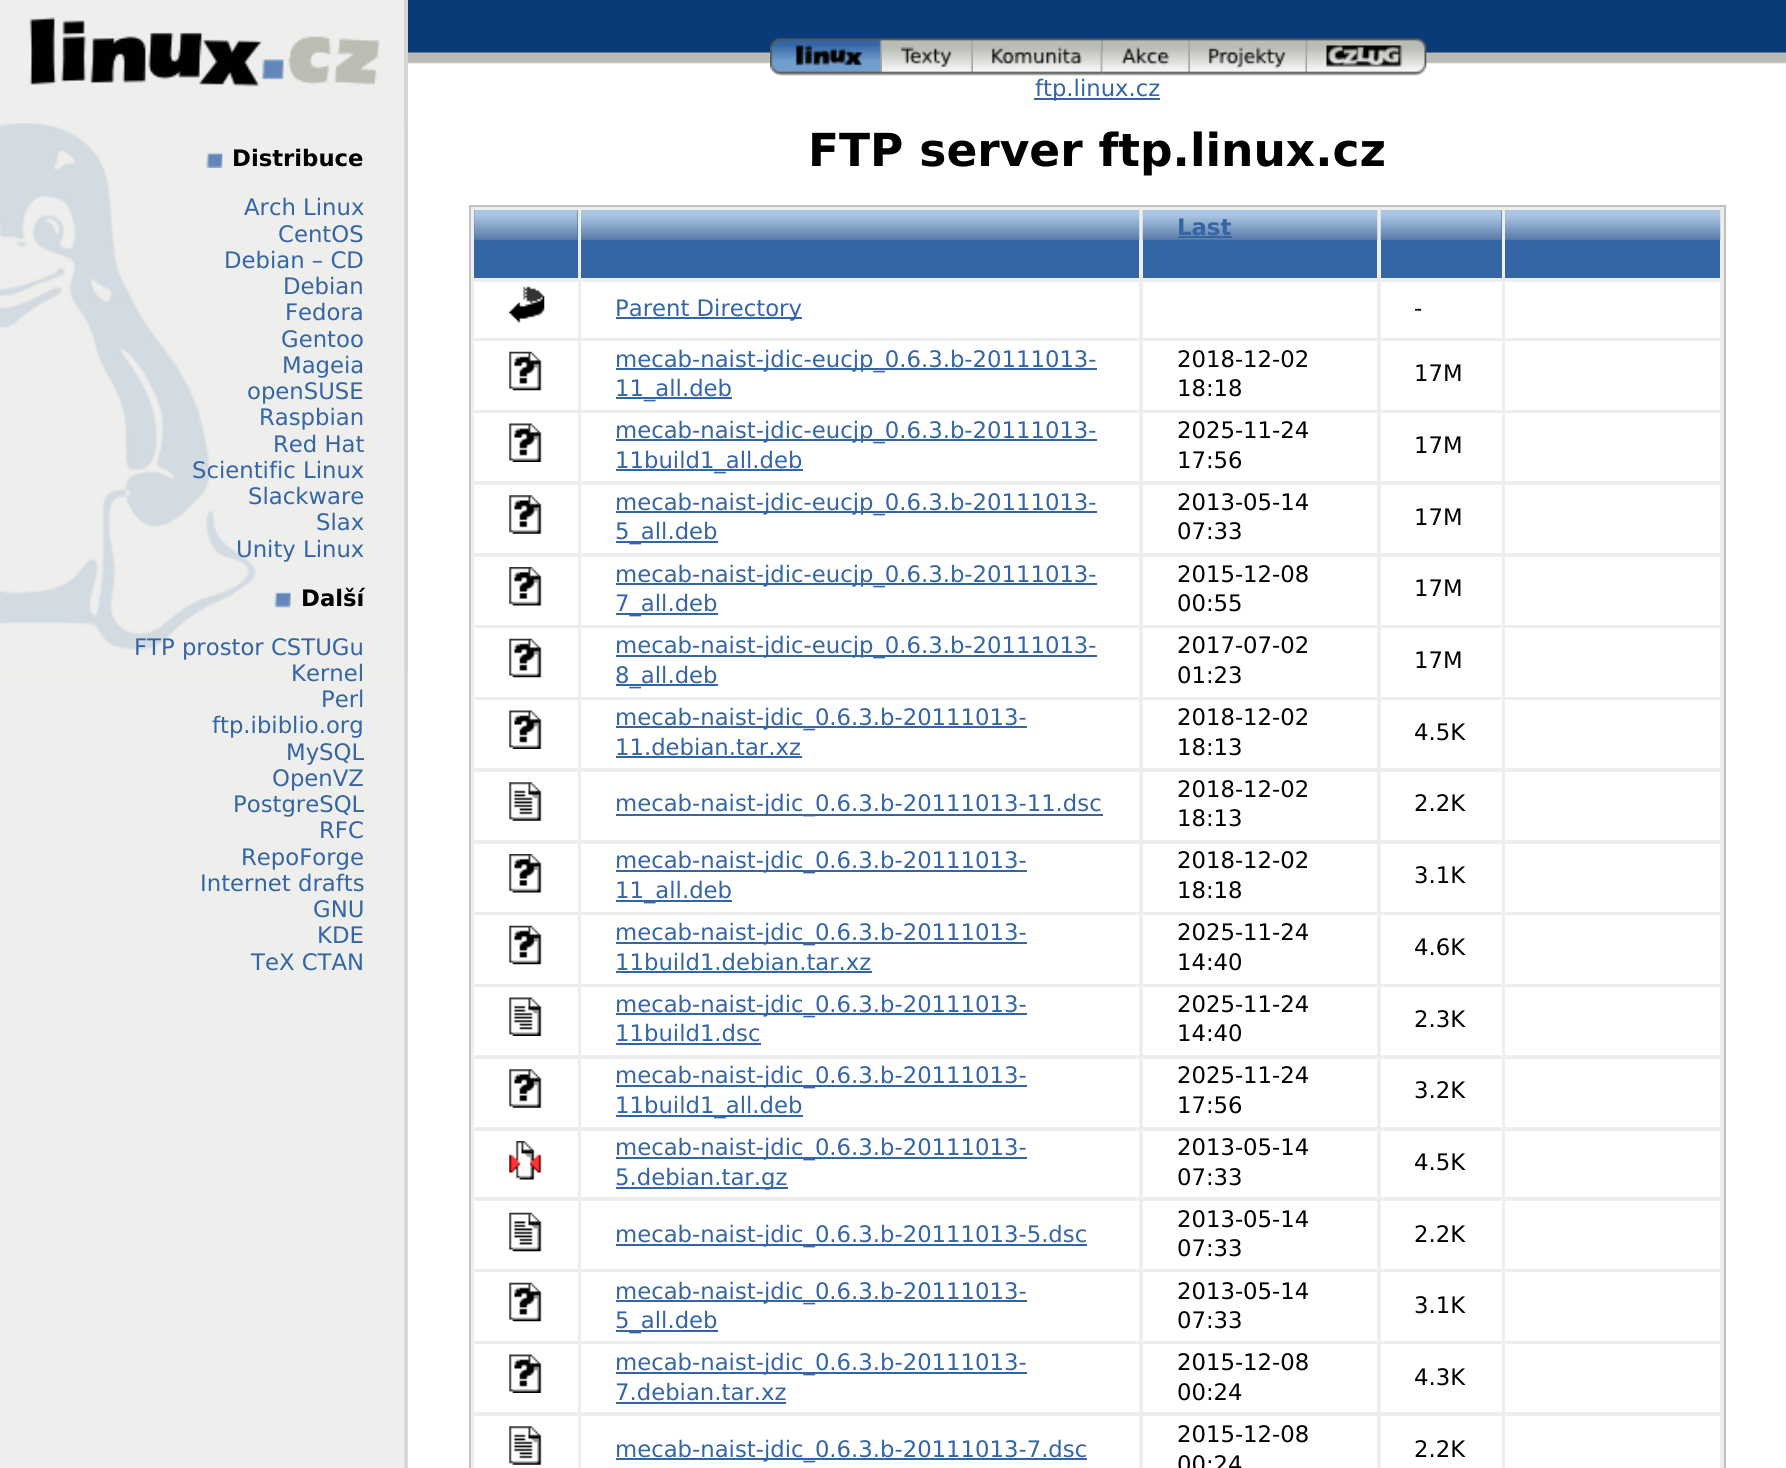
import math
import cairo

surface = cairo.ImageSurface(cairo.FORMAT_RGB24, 1786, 1468)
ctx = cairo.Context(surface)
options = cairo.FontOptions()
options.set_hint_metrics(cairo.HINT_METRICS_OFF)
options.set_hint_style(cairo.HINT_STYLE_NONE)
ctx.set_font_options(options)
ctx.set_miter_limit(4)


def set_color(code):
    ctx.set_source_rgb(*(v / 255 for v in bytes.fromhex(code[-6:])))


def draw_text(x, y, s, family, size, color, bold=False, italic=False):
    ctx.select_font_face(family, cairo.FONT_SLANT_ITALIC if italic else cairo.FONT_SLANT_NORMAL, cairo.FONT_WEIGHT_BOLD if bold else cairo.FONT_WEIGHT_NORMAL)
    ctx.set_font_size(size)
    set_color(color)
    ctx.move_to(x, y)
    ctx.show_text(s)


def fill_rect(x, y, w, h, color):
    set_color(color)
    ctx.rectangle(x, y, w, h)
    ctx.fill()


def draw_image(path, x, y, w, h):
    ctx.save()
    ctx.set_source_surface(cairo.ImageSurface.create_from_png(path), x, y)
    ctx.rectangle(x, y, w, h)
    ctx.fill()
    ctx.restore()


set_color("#ffffff")
ctx.paint()
draw_image("assets/img1.png", 0, 123, 408, 1345)
draw_image("assets/img2.png", 408, 0, 1378, 64)
fill_rect(0, 0, 404, 123, "#eeeeec")
fill_rect(404, 0, 4, 123, "#d3d7cf")
draw_image("assets/img3.png", 29, 17, 351, 70)
draw_image("assets/img4.png", 770, 38, 112, 38)
draw_image("assets/img5.png", 770, 38, 112, 38)
draw_image("assets/img6.png", 882, 38, 91, 38)
draw_image("assets/img7.png", 882, 38, 91, 38)
draw_image("assets/img8.png", 973, 38, 130, 38)
draw_image("assets/img10.png", 1102, 38, 88, 38)
draw_image("assets/img9.png", 973, 38, 130, 38)
draw_image("assets/img11.png", 1102, 38, 88, 38)
draw_image("assets/img12.png", 1190, 38, 118, 38)
draw_image("assets/img14.png", 1307, 38, 120, 38)
draw_image("assets/img13.png", 1190, 38, 118, 38)
draw_image("assets/img15.png", 1307, 38, 120, 38)
fill_rect(1034, 98, 126, 2, "#3465a4")
draw_text(1035, 96, "ftp.linux.cz", "DejaVu Sans", 22.75, "#3465a4")
draw_image("assets/img16.png", 0, 123, 408, 551)
draw_image("assets/img17.png", 206, 152, 17, 16)
draw_text(232, 166, "Distribuce", "DejaVu Sans", 22.75, "#000000", bold=True)
draw_text(244, 215, "Arch Linux", "DejaVu Sans", 22.75, "#3465a4")
draw_text(278, 242, "CentOS", "DejaVu Sans", 22.75, "#3465a4")
draw_text(224, 268, "Debian – CD", "DejaVu Sans", 22.75, "#3465a4")
draw_text(283, 294, "Debian", "DejaVu Sans", 22.75, "#3465a4")
draw_text(285, 320, "Fedora", "DejaVu Sans", 22.75, "#3465a4")
draw_text(281, 347, "Gentoo", "DejaVu Sans", 22.75, "#3465a4")
draw_text(282, 373, "Mageia", "DejaVu Sans", 22.75, "#3465a4")
draw_text(247, 399, "openSUSE", "DejaVu Sans", 22.75, "#3465a4")
draw_text(259, 425, "Raspbian", "DejaVu Sans", 22.75, "#3465a4")
draw_text(273, 452, "Red Hat", "DejaVu Sans", 22.75, "#3465a4")
draw_text(192, 478, "Scientific Linux", "DejaVu Sans", 22.75, "#3465a4")
draw_text(248, 504, "Slackware", "DejaVu Sans", 22.75, "#3465a4")
draw_text(316, 530, "Slax", "DejaVu Sans", 22.75, "#3465a4")
draw_text(236, 557, "Unity Linux", "DejaVu Sans", 22.75, "#3465a4")
draw_image("assets/img18.png", 274, 591, 17, 17)
draw_text(301, 606, "Další", "DejaVu Sans", 22.75, "#000000", bold=True)
draw_text(134, 655, "FTP prostor CSTUGu", "DejaVu Sans", 22.75, "#3465a4")
draw_text(291, 681, "Kernel", "DejaVu Sans", 22.75, "#3465a4")
draw_text(321, 707, "Perl", "DejaVu Sans", 22.75, "#3465a4")
draw_text(212, 733, "ftp.ibiblio.org", "DejaVu Sans", 22.75, "#3465a4")
draw_text(286, 760, "MySQL", "DejaVu Sans", 22.75, "#3465a4")
draw_text(272, 786, "OpenVZ", "DejaVu Sans", 22.75, "#3465a4")
draw_text(233, 812, "PostgreSQL", "DejaVu Sans", 22.75, "#3465a4")
draw_text(319, 838, "RFC", "DejaVu Sans", 22.75, "#3465a4")
draw_text(241, 865, "RepoForge", "DejaVu Sans", 22.75, "#3465a4")
draw_text(200, 891, "Internet drafts", "DejaVu Sans", 22.75, "#3465a4")
draw_text(313, 917, "GNU", "DejaVu Sans", 22.75, "#3465a4")
draw_text(317, 943, "KDE", "DejaVu Sans", 22.75, "#3465a4")
draw_text(251, 970, "TeX CTAN", "DejaVu Sans", 22.75, "#3465a4")
draw_text(808, 166, "FTP server ftp.linux.cz", "DejaVu Sans", 45.5, "#000000", bold=True)
set_color("#eeeeec")
ctx.rectangle(470, 206, 1255, 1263)
ctx.fill_preserve()
set_color("#c0c0c0")
ctx.stroke()
fill_rect(474, 210, 104, 68, "#3465a4")
draw_image("assets/img19.png", 474, 210, 104, 30)
fill_rect(581, 239, 558, 39, "#3465a4")
draw_image("assets/img20.png", 581, 210, 559, 30)
fill_rect(1143, 239, 234, 39, "#3465a4")
draw_image("assets/img21.png", 1142, 210, 236, 30)
draw_text(1177, 235, "Last", "DejaVu Sans", 22.75, "#3465a4", bold=True)
fill_rect(1178, 236, 54, 2, "#3465a4")
fill_rect(1381, 210, 121, 68, "#3465a4")
draw_image("assets/img22.png", 1380, 210, 122, 30)
fill_rect(1505, 239, 215, 39, "#3465a4")
draw_image("assets/img23.png", 1505, 210, 216, 30)
fill_rect(474, 282, 104, 56, "#ffffff")
draw_image("assets/img24.png", 509, 286, 36, 37)
fill_rect(581, 282, 558, 56, "#ffffff")
fill_rect(616, 317, 186, 2, "#3465a4")
draw_text(615, 316, "Parent Directory", "DejaVu Sans", 22.75, "#3465a4")
fill_rect(1143, 282, 234, 56, "#ffffff")
fill_rect(1381, 282, 121, 56, "#ffffff")
draw_text(1414, 316, "-", "DejaVu Sans", 22.75, "#000000")
fill_rect(1505, 282, 215, 56, "#ffffff")
fill_rect(474, 341, 104, 69, "#ffffff")
draw_image("assets/img25.png", 509, 351, 33, 40)
fill_rect(581, 341, 558, 69, "#ffffff")
fill_rect(616, 368, 481, 2, "#3465a4")
draw_text(615, 367, "mecab-naist-jdic-eucjp_0.6.3.b-20111013-", "DejaVu Sans", 22.75, "#3465a4")
fill_rect(616, 397, 116, 2, "#3465a4")
draw_text(615, 396, "11_all.deb", "DejaVu Sans", 22.75, "#3465a4")
fill_rect(1143, 341, 234, 69, "#ffffff")
draw_text(1177, 367, "2018-12-02", "DejaVu Sans", 22.75, "#000000")
draw_text(1177, 396, "18:18", "DejaVu Sans", 22.75, "#000000")
fill_rect(1381, 341, 121, 69, "#ffffff")
draw_text(1414, 381, "17M", "DejaVu Sans", 22.75, "#000000")
fill_rect(1505, 341, 215, 69, "#ffffff")
fill_rect(474, 413, 104, 68, "#ffffff")
draw_image("assets/img26.png", 509, 423, 33, 39)
fill_rect(581, 413, 558, 68, "#ffffff")
fill_rect(616, 439, 481, 2, "#3465a4")
draw_text(615, 438, "mecab-naist-jdic-eucjp_0.6.3.b-20111013-", "DejaVu Sans", 22.75, "#3465a4")
fill_rect(616, 469, 187, 2, "#3465a4")
draw_text(615, 468, "11build1_all.deb", "DejaVu Sans", 22.75, "#3465a4")
fill_rect(1143, 413, 234, 68, "#ffffff")
draw_text(1177, 438, "2025-11-24", "DejaVu Sans", 22.75, "#000000")
draw_text(1177, 468, "17:56", "DejaVu Sans", 22.75, "#000000")
fill_rect(1381, 413, 121, 68, "#ffffff")
draw_text(1414, 453, "17M", "DejaVu Sans", 22.75, "#000000")
fill_rect(1505, 413, 215, 68, "#ffffff")
fill_rect(474, 485, 104, 68, "#ffffff")
draw_image("assets/img27.png", 509, 495, 33, 39)
fill_rect(581, 485, 558, 68, "#ffffff")
fill_rect(616, 511, 481, 2, "#3465a4")
draw_text(615, 510, "mecab-naist-jdic-eucjp_0.6.3.b-20111013-", "DejaVu Sans", 22.75, "#3465a4")
fill_rect(616, 541, 102, 2, "#3465a4")
draw_text(615, 539, "5_all.deb", "DejaVu Sans", 22.75, "#3465a4")
fill_rect(1143, 485, 234, 68, "#ffffff")
draw_text(1177, 510, "2013-05-14", "DejaVu Sans", 22.75, "#000000")
draw_text(1177, 539, "07:33", "DejaVu Sans", 22.75, "#000000")
fill_rect(1381, 485, 121, 68, "#ffffff")
draw_text(1414, 525, "17M", "DejaVu Sans", 22.75, "#000000")
fill_rect(1505, 485, 215, 68, "#ffffff")
fill_rect(474, 557, 104, 68, "#ffffff")
draw_image("assets/img28.png", 509, 567, 33, 39)
fill_rect(581, 557, 558, 68, "#ffffff")
fill_rect(616, 583, 481, 2, "#3465a4")
draw_text(615, 582, "mecab-naist-jdic-eucjp_0.6.3.b-20111013-", "DejaVu Sans", 22.75, "#3465a4")
fill_rect(616, 613, 102, 2, "#3465a4")
draw_text(615, 611, "7_all.deb", "DejaVu Sans", 22.75, "#3465a4")
fill_rect(1143, 557, 234, 68, "#ffffff")
draw_text(1177, 582, "2015-12-08", "DejaVu Sans", 22.75, "#000000")
draw_text(1177, 611, "00:55", "DejaVu Sans", 22.75, "#000000")
fill_rect(1381, 557, 121, 68, "#ffffff")
draw_text(1414, 596, "17M", "DejaVu Sans", 22.75, "#000000")
fill_rect(1505, 557, 215, 68, "#ffffff")
fill_rect(474, 628, 104, 69, "#ffffff")
draw_image("assets/img25.png", 509, 638, 33, 40)
fill_rect(581, 628, 558, 69, "#ffffff")
fill_rect(616, 655, 481, 2, "#3465a4")
draw_text(615, 653, "mecab-naist-jdic-eucjp_0.6.3.b-20111013-", "DejaVu Sans", 22.75, "#3465a4")
fill_rect(616, 684, 102, 2, "#3465a4")
draw_text(615, 683, "8_all.deb", "DejaVu Sans", 22.75, "#3465a4")
fill_rect(1143, 628, 234, 69, "#ffffff")
draw_text(1177, 653, "2017-07-02", "DejaVu Sans", 22.75, "#000000")
draw_text(1177, 683, "01:23", "DejaVu Sans", 22.75, "#000000")
fill_rect(1381, 628, 121, 69, "#ffffff")
draw_text(1414, 668, "17M", "DejaVu Sans", 22.75, "#000000")
fill_rect(1505, 628, 215, 69, "#ffffff")
fill_rect(474, 700, 104, 68, "#ffffff")
draw_image("assets/img26.png", 509, 710, 33, 39)
fill_rect(581, 700, 558, 68, "#ffffff")
fill_rect(616, 726, 411, 2, "#3465a4")
draw_text(615, 725, "mecab-naist-jdic_0.6.3.b-20111013-", "DejaVu Sans", 22.75, "#3465a4")
draw_text(615, 755, "11.debian.tar.xz", "DejaVu Sans", 22.75, "#3465a4")
fill_rect(616, 756, 186, 2, "#3465a4")
fill_rect(1143, 700, 234, 68, "#ffffff")
draw_text(1177, 725, "2018-12-02", "DejaVu Sans", 22.75, "#000000")
draw_text(1177, 755, "18:13", "DejaVu Sans", 22.75, "#000000")
fill_rect(1381, 700, 121, 68, "#ffffff")
draw_text(1414, 740, "4.5K", "DejaVu Sans", 22.75, "#000000")
fill_rect(1505, 700, 215, 68, "#ffffff")
fill_rect(474, 772, 104, 68, "#ffffff")
draw_image("assets/img29.png", 509, 782, 33, 39)
fill_rect(581, 772, 558, 68, "#ffffff")
fill_rect(616, 814, 487, 2, "#3465a4")
draw_text(615, 811, "mecab-naist-jdic_0.6.3.b-20111013-11.dsc", "DejaVu Sans", 22.75, "#3465a4")
fill_rect(1143, 772, 234, 68, "#ffffff")
draw_text(1177, 797, "2018-12-02", "DejaVu Sans", 22.75, "#000000")
draw_text(1177, 826, "18:13", "DejaVu Sans", 22.75, "#000000")
fill_rect(1381, 772, 121, 68, "#ffffff")
draw_text(1414, 811, "2.2K", "DejaVu Sans", 22.75, "#000000")
fill_rect(1505, 772, 215, 68, "#ffffff")
fill_rect(474, 844, 104, 68, "#ffffff")
draw_image("assets/img28.png", 509, 854, 33, 39)
fill_rect(581, 844, 558, 68, "#ffffff")
fill_rect(616, 870, 411, 2, "#3465a4")
draw_text(615, 868, "mecab-naist-jdic_0.6.3.b-20111013-", "DejaVu Sans", 22.75, "#3465a4")
fill_rect(616, 900, 116, 2, "#3465a4")
draw_text(615, 898, "11_all.deb", "DejaVu Sans", 22.75, "#3465a4")
fill_rect(1143, 844, 234, 68, "#ffffff")
draw_text(1177, 868, "2018-12-02", "DejaVu Sans", 22.75, "#000000")
draw_text(1177, 898, "18:18", "DejaVu Sans", 22.75, "#000000")
fill_rect(1381, 844, 121, 68, "#ffffff")
draw_text(1414, 883, "3.1K", "DejaVu Sans", 22.75, "#000000")
fill_rect(1505, 844, 215, 68, "#ffffff")
fill_rect(474, 915, 104, 69, "#ffffff")
draw_image("assets/img25.png", 509, 925, 33, 40)
fill_rect(581, 915, 558, 69, "#ffffff")
fill_rect(616, 942, 411, 2, "#3465a4")
draw_text(615, 940, "mecab-naist-jdic_0.6.3.b-20111013-", "DejaVu Sans", 22.75, "#3465a4")
draw_text(615, 970, "11build1.debian.tar.xz", "DejaVu Sans", 22.75, "#3465a4")
fill_rect(616, 971, 256, 2, "#3465a4")
fill_rect(1143, 915, 234, 69, "#ffffff")
draw_text(1177, 940, "2025-11-24", "DejaVu Sans", 22.75, "#000000")
draw_text(1177, 970, "14:40", "DejaVu Sans", 22.75, "#000000")
fill_rect(1381, 915, 121, 69, "#ffffff")
draw_text(1414, 955, "4.6K", "DejaVu Sans", 22.75, "#000000")
fill_rect(1505, 915, 215, 69, "#ffffff")
fill_rect(474, 987, 104, 68, "#ffffff")
draw_image("assets/img30.png", 509, 997, 33, 39)
fill_rect(581, 987, 558, 68, "#ffffff")
fill_rect(616, 1013, 411, 2, "#3465a4")
draw_text(615, 1012, "mecab-naist-jdic_0.6.3.b-20111013-", "DejaVu Sans", 22.75, "#3465a4")
draw_text(615, 1041, "11build1.dsc", "DejaVu Sans", 22.75, "#3465a4")
fill_rect(616, 1043, 145, 2, "#3465a4")
fill_rect(1143, 987, 234, 68, "#ffffff")
draw_text(1177, 1012, "2025-11-24", "DejaVu Sans", 22.75, "#000000")
draw_text(1177, 1041, "14:40", "DejaVu Sans", 22.75, "#000000")
fill_rect(1381, 987, 121, 68, "#ffffff")
draw_text(1414, 1027, "2.3K", "DejaVu Sans", 22.75, "#000000")
fill_rect(1505, 987, 215, 68, "#ffffff")
fill_rect(474, 1059, 104, 68, "#ffffff")
draw_image("assets/img27.png", 509, 1069, 33, 39)
fill_rect(581, 1059, 558, 68, "#ffffff")
fill_rect(616, 1085, 411, 2, "#3465a4")
draw_text(615, 1083, "mecab-naist-jdic_0.6.3.b-20111013-", "DejaVu Sans", 22.75, "#3465a4")
fill_rect(616, 1115, 187, 2, "#3465a4")
draw_text(615, 1113, "11build1_all.deb", "DejaVu Sans", 22.75, "#3465a4")
fill_rect(1143, 1059, 234, 68, "#ffffff")
draw_text(1177, 1083, "2025-11-24", "DejaVu Sans", 22.75, "#000000")
draw_text(1177, 1113, "17:56", "DejaVu Sans", 22.75, "#000000")
fill_rect(1381, 1059, 121, 68, "#ffffff")
draw_text(1414, 1098, "3.2K", "DejaVu Sans", 22.75, "#000000")
fill_rect(1505, 1059, 215, 68, "#ffffff")
fill_rect(474, 1131, 104, 66, "#ffffff")
draw_image("assets/img31.png", 509, 1141, 33, 39)
fill_rect(581, 1131, 558, 66, "#ffffff")
fill_rect(616, 1157, 411, 2, "#3465a4")
draw_text(615, 1155, "mecab-naist-jdic_0.6.3.b-20111013-", "DejaVu Sans", 22.75, "#3465a4")
fill_rect(616, 1187, 172, 2, "#3465a4")
draw_text(615, 1185, "5.debian.tar.gz", "DejaVu Sans", 22.75, "#3465a4")
fill_rect(1143, 1131, 234, 66, "#ffffff")
draw_text(1177, 1155, "2013-05-14", "DejaVu Sans", 22.75, "#000000")
draw_text(1177, 1185, "07:33", "DejaVu Sans", 22.75, "#000000")
fill_rect(1381, 1131, 121, 66, "#ffffff")
draw_text(1414, 1170, "4.5K", "DejaVu Sans", 22.75, "#000000")
fill_rect(1505, 1131, 215, 66, "#ffffff")
fill_rect(474, 1201, 104, 68, "#ffffff")
draw_image("assets/img32.png", 509, 1212, 33, 40)
fill_rect(581, 1201, 558, 68, "#ffffff")
fill_rect(616, 1244, 471, 2, "#3465a4")
draw_text(615, 1242, "mecab-naist-jdic_0.6.3.b-20111013-5.dsc", "DejaVu Sans", 22.75, "#3465a4")
fill_rect(1143, 1201, 234, 68, "#ffffff")
draw_text(1177, 1227, "2013-05-14", "DejaVu Sans", 22.75, "#000000")
draw_text(1177, 1256, "07:33", "DejaVu Sans", 22.75, "#000000")
fill_rect(1381, 1201, 121, 68, "#ffffff")
draw_text(1414, 1242, "2.2K", "DejaVu Sans", 22.75, "#000000")
fill_rect(1505, 1201, 215, 68, "#ffffff")
fill_rect(474, 1272, 104, 69, "#ffffff")
draw_image("assets/img25.png", 509, 1282, 33, 40)
fill_rect(581, 1272, 558, 69, "#ffffff")
fill_rect(616, 1300, 411, 2, "#3465a4")
draw_text(615, 1299, "mecab-naist-jdic_0.6.3.b-20111013-", "DejaVu Sans", 22.75, "#3465a4")
fill_rect(616, 1330, 102, 2, "#3465a4")
draw_text(615, 1328, "5_all.deb", "DejaVu Sans", 22.75, "#3465a4")
fill_rect(1143, 1272, 234, 69, "#ffffff")
draw_text(1177, 1299, "2013-05-14", "DejaVu Sans", 22.75, "#000000")
draw_text(1177, 1328, "07:33", "DejaVu Sans", 22.75, "#000000")
fill_rect(1381, 1272, 121, 69, "#ffffff")
draw_text(1414, 1313, "3.1K", "DejaVu Sans", 22.75, "#000000")
fill_rect(1505, 1272, 215, 69, "#ffffff")
fill_rect(474, 1344, 104, 68, "#ffffff")
draw_image("assets/img26.png", 509, 1354, 33, 39)
fill_rect(581, 1344, 558, 68, "#ffffff")
fill_rect(616, 1372, 411, 2, "#3465a4")
draw_text(615, 1370, "mecab-naist-jdic_0.6.3.b-20111013-", "DejaVu Sans", 22.75, "#3465a4")
draw_text(615, 1400, "7.debian.tar.xz", "DejaVu Sans", 22.75, "#3465a4")
fill_rect(616, 1402, 170, 2, "#3465a4")
fill_rect(1143, 1344, 234, 68, "#ffffff")
draw_text(1177, 1370, "2015-12-08", "DejaVu Sans", 22.75, "#000000")
draw_text(1177, 1400, "00:24", "DejaVu Sans", 22.75, "#000000")
fill_rect(1381, 1344, 121, 68, "#ffffff")
draw_text(1414, 1385, "4.3K", "DejaVu Sans", 22.75, "#000000")
fill_rect(1505, 1344, 215, 68, "#ffffff")
fill_rect(474, 1416, 104, 52, "#ffffff")
draw_image("assets/img29.png", 509, 1426, 33, 39)
fill_rect(581, 1416, 558, 52, "#ffffff")
fill_rect(616, 1458, 471, 2, "#3465a4")
draw_text(615, 1457, "mecab-naist-jdic_0.6.3.b-20111013-7.dsc", "DejaVu Sans", 22.75, "#3465a4")
fill_rect(1143, 1416, 234, 52, "#ffffff")
draw_text(1177, 1442, "2015-12-08", "DejaVu Sans", 22.75, "#000000")
draw_text(1177, 1472, "00:24", "DejaVu Sans", 22.75, "#000000")
fill_rect(1381, 1416, 121, 52, "#ffffff")
draw_text(1414, 1457, "2.2K", "DejaVu Sans", 22.75, "#000000")
fill_rect(1505, 1416, 215, 52, "#ffffff")
surface.write_to_png("output.png")
